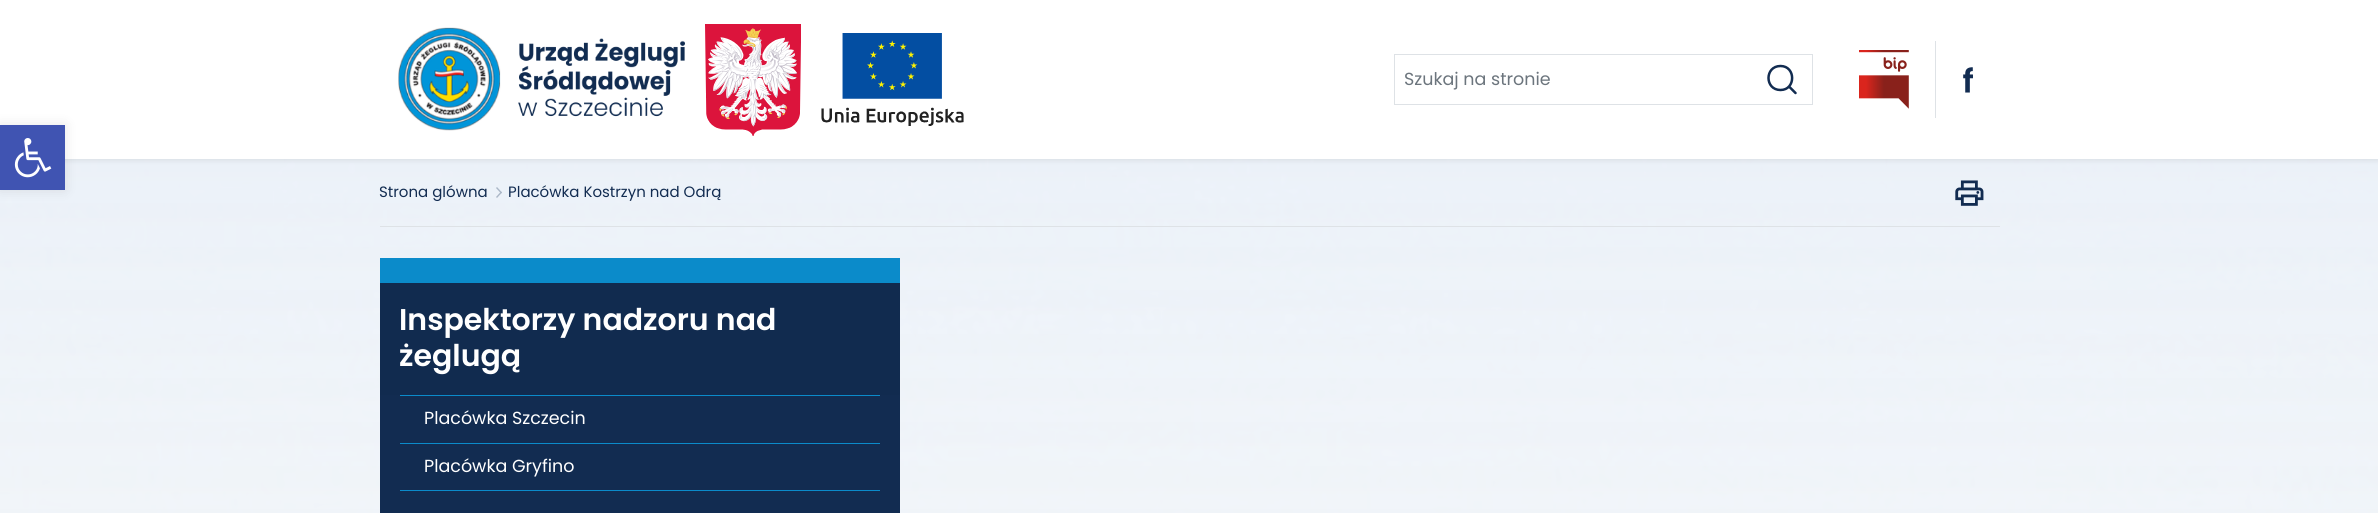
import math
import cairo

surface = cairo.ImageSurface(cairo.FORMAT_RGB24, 2378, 513)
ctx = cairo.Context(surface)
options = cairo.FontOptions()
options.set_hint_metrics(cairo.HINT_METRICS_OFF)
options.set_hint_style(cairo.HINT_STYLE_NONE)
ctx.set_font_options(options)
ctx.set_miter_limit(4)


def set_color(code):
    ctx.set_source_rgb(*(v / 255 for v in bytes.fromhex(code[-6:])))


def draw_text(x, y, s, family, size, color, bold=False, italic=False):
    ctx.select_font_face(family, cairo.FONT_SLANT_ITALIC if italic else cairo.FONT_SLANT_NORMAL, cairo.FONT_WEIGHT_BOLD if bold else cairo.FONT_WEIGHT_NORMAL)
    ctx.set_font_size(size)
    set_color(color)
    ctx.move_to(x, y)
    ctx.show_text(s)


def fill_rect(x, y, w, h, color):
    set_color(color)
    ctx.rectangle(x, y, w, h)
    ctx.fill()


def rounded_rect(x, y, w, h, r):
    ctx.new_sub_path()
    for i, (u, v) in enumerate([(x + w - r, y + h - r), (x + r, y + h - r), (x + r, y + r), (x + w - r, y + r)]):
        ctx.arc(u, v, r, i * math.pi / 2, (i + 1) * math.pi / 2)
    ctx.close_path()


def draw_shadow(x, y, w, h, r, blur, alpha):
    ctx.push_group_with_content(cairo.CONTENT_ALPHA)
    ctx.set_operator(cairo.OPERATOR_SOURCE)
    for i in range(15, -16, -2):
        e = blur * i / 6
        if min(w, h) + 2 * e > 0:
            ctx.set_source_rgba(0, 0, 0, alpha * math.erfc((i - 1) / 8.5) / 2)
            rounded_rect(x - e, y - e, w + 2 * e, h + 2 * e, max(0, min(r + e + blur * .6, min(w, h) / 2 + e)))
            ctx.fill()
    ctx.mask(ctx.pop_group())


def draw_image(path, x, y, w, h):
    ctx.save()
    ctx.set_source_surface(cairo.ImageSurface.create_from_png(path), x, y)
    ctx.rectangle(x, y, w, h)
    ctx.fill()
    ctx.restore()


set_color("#ffffff")
ctx.paint()
draw_image("assets/img7.png", 0, 159, 2378, 354)
set_color("#000000")
draw_shadow(0, 3, 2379, 158, 0, 2.5, 0.07)
fill_rect(0, 0, 2378, 159, "#ffffff")
set_color("#000000")
draw_shadow(0, 125, 65, 65, 0, 6, 0.1)
fill_rect(0, 125, 65, 65, "#4054b2")
draw_image("assets/img1.png", 14, 138, 38, 40)
draw_image("assets/img2.png", 398, 27, 287, 104)
draw_image("assets/img3.png", 705, 24, 96, 112)
draw_image("assets/img4.png", 821, 33, 143, 93)
ctx.rectangle(1394.5, 54.5, 418, 50)
set_color("#dee2e6")
ctx.set_line_width(1)
ctx.stroke()
draw_text(1404, 85, "Szukaj na stronie", "Poppins", 17.5, "#6c757d")
ctx.new_path()
ctx.move_to(1780.5, 90)
ctx.curve_to(1796, 90, 1796, 66, 1780.5, 66)
ctx.curve_to(1764.5, 66, 1764.5, 90, 1780.5, 90)
ctx.close_path()
ctx.move_to(1795.5, 93)
ctx.line_to(1789, 86.5)
set_color("#122c51")
ctx.set_line_width(2.5)
ctx.set_line_cap(cairo.LINE_CAP_ROUND)
ctx.set_line_join(cairo.LINE_JOIN_ROUND)
ctx.stroke()
draw_image("assets/img5.png", 1859, 50, 50, 59)
fill_rect(1935, 41, 1, 77, "#dee2e6")
draw_image("assets/img6.png", 1963, 67, 10, 26)
fill_rect(380, 226, 1620, 1, "#dee2e6")
draw_text(379, 197, "Strona glówna", "Poppins", 15, "#122c51")
set_color("#abb7c7")
ctx.new_path()
ctx.move_to(501, 193.5)
ctx.line_to(496, 188)
ctx.line_to(497, 187)
ctx.line_to(502, 192.5)
ctx.close_path()
ctx.fill()
ctx.new_path()
ctx.move_to(497, 198)
ctx.line_to(496, 197)
ctx.line_to(501, 191.5)
ctx.line_to(502, 192.5)
ctx.close_path()
ctx.fill()
draw_text(508, 197, "Placówka Kostrzyn nad Odrą", "Poppins", 15, "#122c51")
draw_image("assets/img8.png", 1955, 180, 29, 26)
fill_rect(380, 395, 520, 118, "#122c51")
fill_rect(380, 283, 520, 112, "#112b4f")
fill_rect(380, 258, 520, 25, "#0b8bca")
draw_text(399, 330, "Inspektorzy nadzoru nad", "Poppins SemiBold", 30, "#ffffff")
draw_text(399, 366, "żeglugą", "Poppins SemiBold", 30, "#ffffff")
fill_rect(400, 395, 480, 1, "#0b8bca")
fill_rect(400, 443, 480, 1, "#0b8bca")
draw_text(424, 424, "Placówka Szczecin", "Poppins", 17.5, "#ffffff")
fill_rect(400, 490, 480, 1, "#0b8bca")
draw_text(424, 472, "Placówka Gryfino", "Poppins", 17.5, "#ffffff")
surface.write_to_png("output.png")
